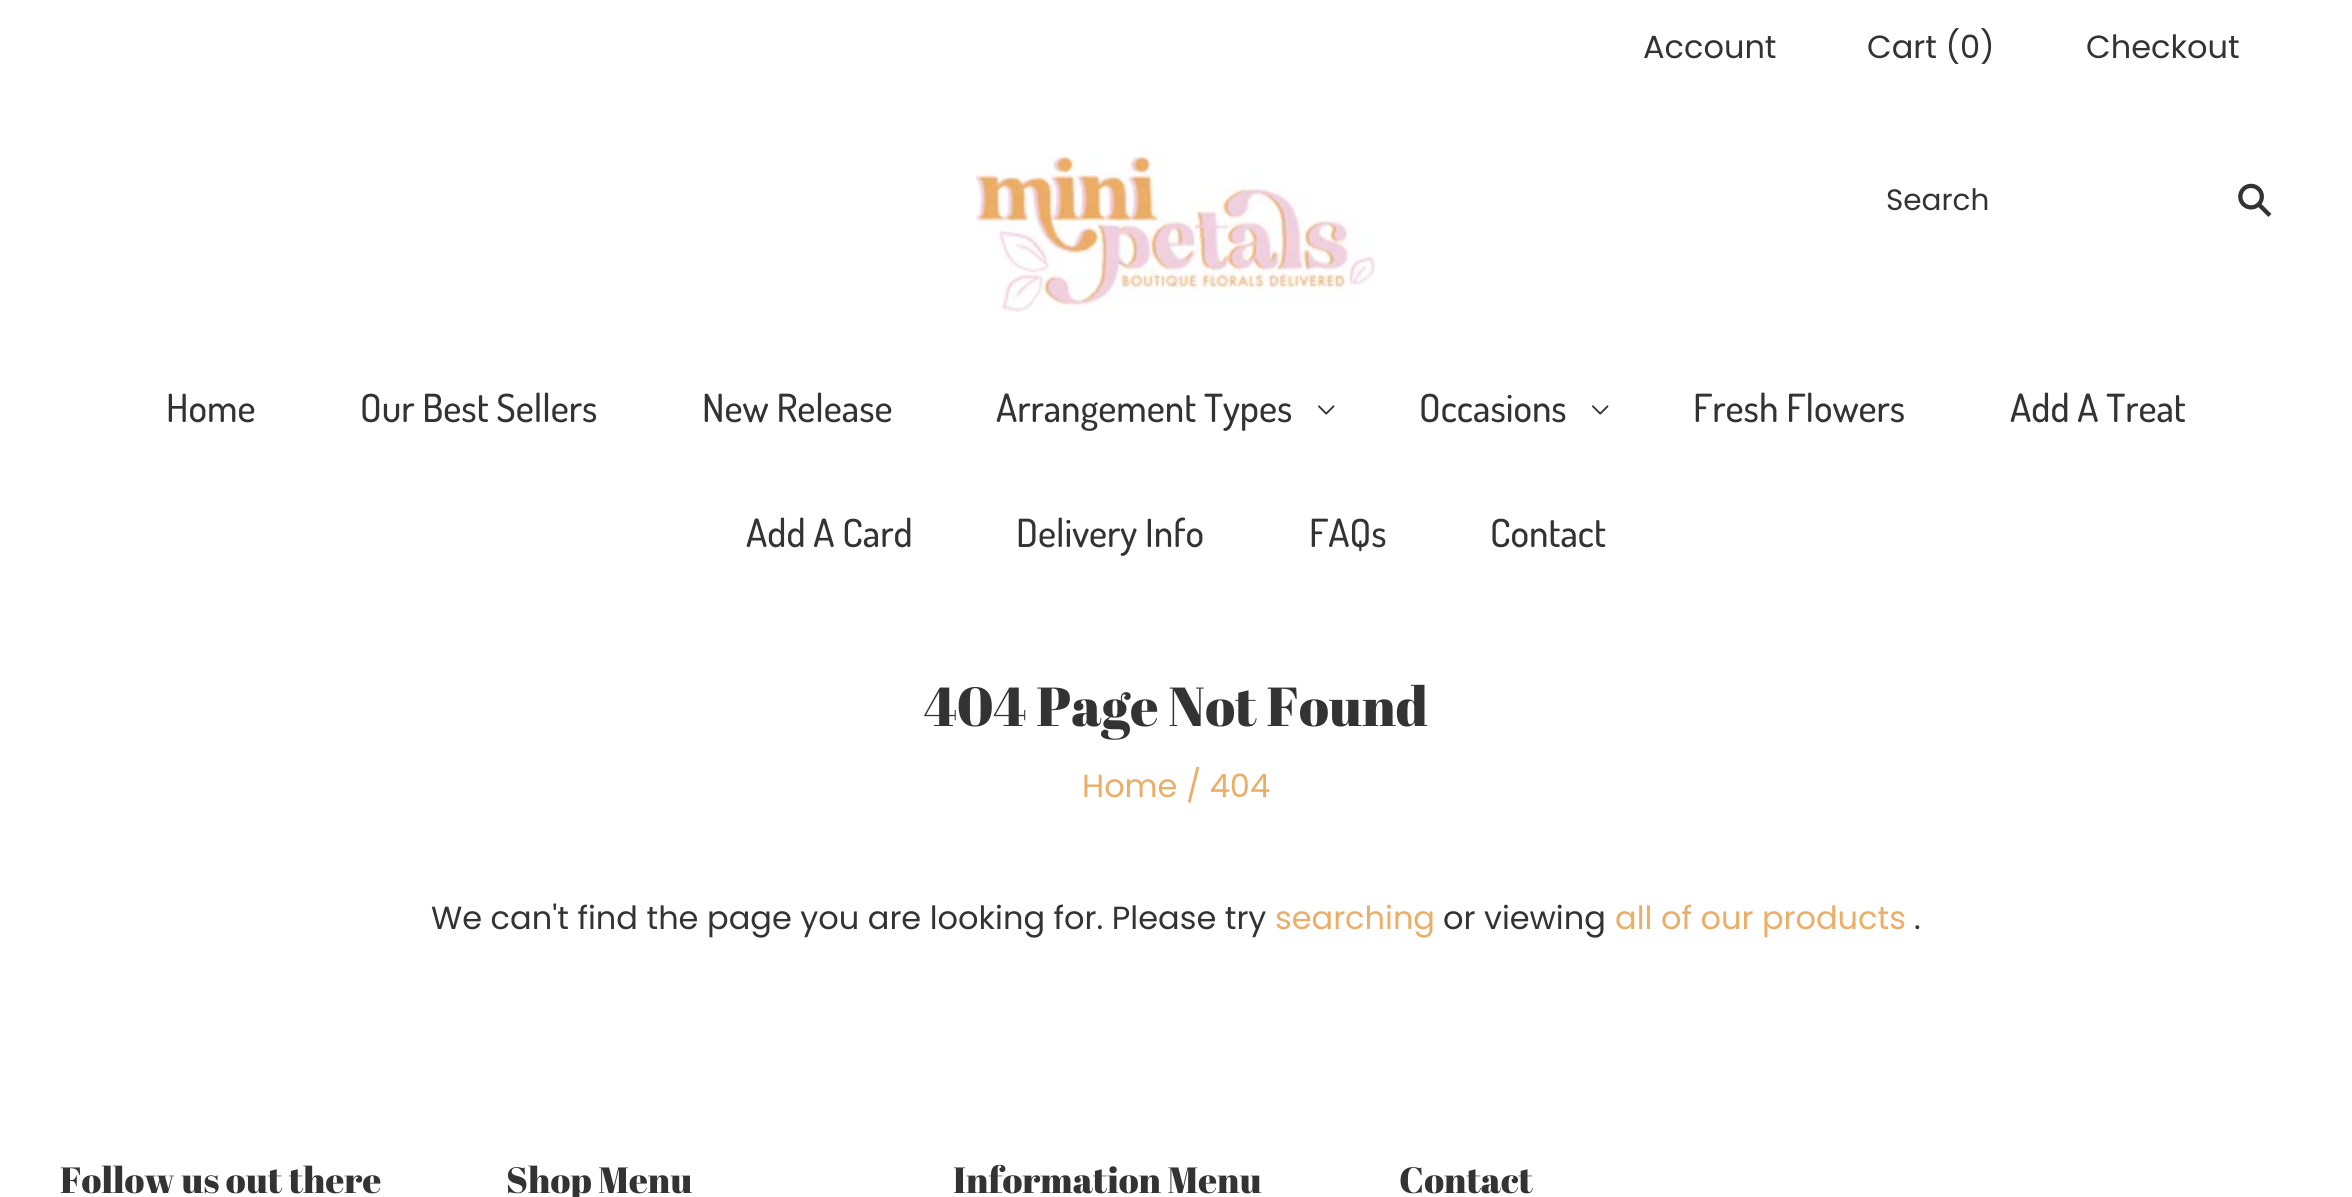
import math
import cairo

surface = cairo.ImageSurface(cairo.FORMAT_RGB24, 2352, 1197)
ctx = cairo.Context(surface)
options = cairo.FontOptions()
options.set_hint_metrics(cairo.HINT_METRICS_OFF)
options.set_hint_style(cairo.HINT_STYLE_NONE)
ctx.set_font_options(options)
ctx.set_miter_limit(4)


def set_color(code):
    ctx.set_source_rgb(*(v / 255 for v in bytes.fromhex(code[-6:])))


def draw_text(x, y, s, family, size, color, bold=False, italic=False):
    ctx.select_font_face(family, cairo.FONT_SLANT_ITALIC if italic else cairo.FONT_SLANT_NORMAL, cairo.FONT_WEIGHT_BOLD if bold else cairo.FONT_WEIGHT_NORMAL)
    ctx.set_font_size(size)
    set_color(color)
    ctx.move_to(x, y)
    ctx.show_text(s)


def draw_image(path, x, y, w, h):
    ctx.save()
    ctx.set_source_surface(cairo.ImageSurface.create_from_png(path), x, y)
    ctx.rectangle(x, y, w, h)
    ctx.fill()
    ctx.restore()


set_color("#ffffff")
ctx.paint()
draw_text(1643, 58, "Account", "Poppins", 32, "#333333")
draw_text(1867, 58, "Cart (0)", "Poppins", 32, "#333333")
draw_text(2086, 58, "Checkout", "Poppins", 32, "#333333")
draw_image("assets/img1.png", 976, 156, 400, 156)
draw_text(1886, 210, "Search", "Poppins", 29.5, "#333333")
draw_image("assets/img2.png", 2238, 183, 34, 34)
draw_text(166, 422, "Home", "Dosis Medium", 38.75, "#333333")
draw_text(360, 422, "Our Best Sellers", "Dosis Medium", 38.75, "#333333")
draw_text(702, 422, "New Release", "Dosis Medium", 38.75, "#333333")
draw_text(996, 422, "Arrangement Types", "Dosis Medium", 38.75, "#333333")
draw_image("assets/img3.png", 1318, 405, 17, 10)
draw_text(1419, 422, "Occasions", "Dosis Medium", 38.75, "#333333")
draw_image("assets/img3.png", 1592, 405, 17, 10)
draw_text(1693, 422, "Fresh Flowers", "Dosis Medium", 38.75, "#333333")
draw_text(2010, 422, "Add A Treat", "Dosis Medium", 38.75, "#333333")
draw_text(746, 547, "Add A Card", "Dosis Medium", 38.75, "#333333")
draw_text(1016, 547, "Delivery Info", "Dosis Medium", 38.75, "#333333")
draw_text(1309, 547, "FAQs", "Dosis Medium", 38.75, "#333333")
draw_text(1490, 547, "Contact", "Dosis Medium", 38.75, "#333333")
draw_text(924, 726, "404 Page Not Found", "Abril Fatface", 54.9, "#333333")
draw_text(1082, 797, "Home / 404", "Poppins", 32, "#ecad66")
draw_text(431, 929, "We can't find the page you are looking for. Please try", "Poppins", 32, "#333333")
draw_text(1275, 929, "searching", "Poppins", 32, "#ecad66")
draw_text(1443, 929, "or viewing", "Poppins", 32, "#333333")
draw_text(1615, 929, "all of our products", "Poppins", 32, "#ecad66")
draw_text(1914, 929, ".", "Poppins", 32, "#333333")
draw_text(60, 1193, "Follow us out there", "Abril Fatface", 36.5, "#333333")
draw_text(506, 1193, "Shop Menu", "Abril Fatface", 36.5, "#333333")
draw_text(953, 1193, "Information Menu", "Abril Fatface", 36.5, "#333333")
draw_text(1399, 1193, "Contact", "Abril Fatface", 36.5, "#333333")
surface.write_to_png("output.png")
